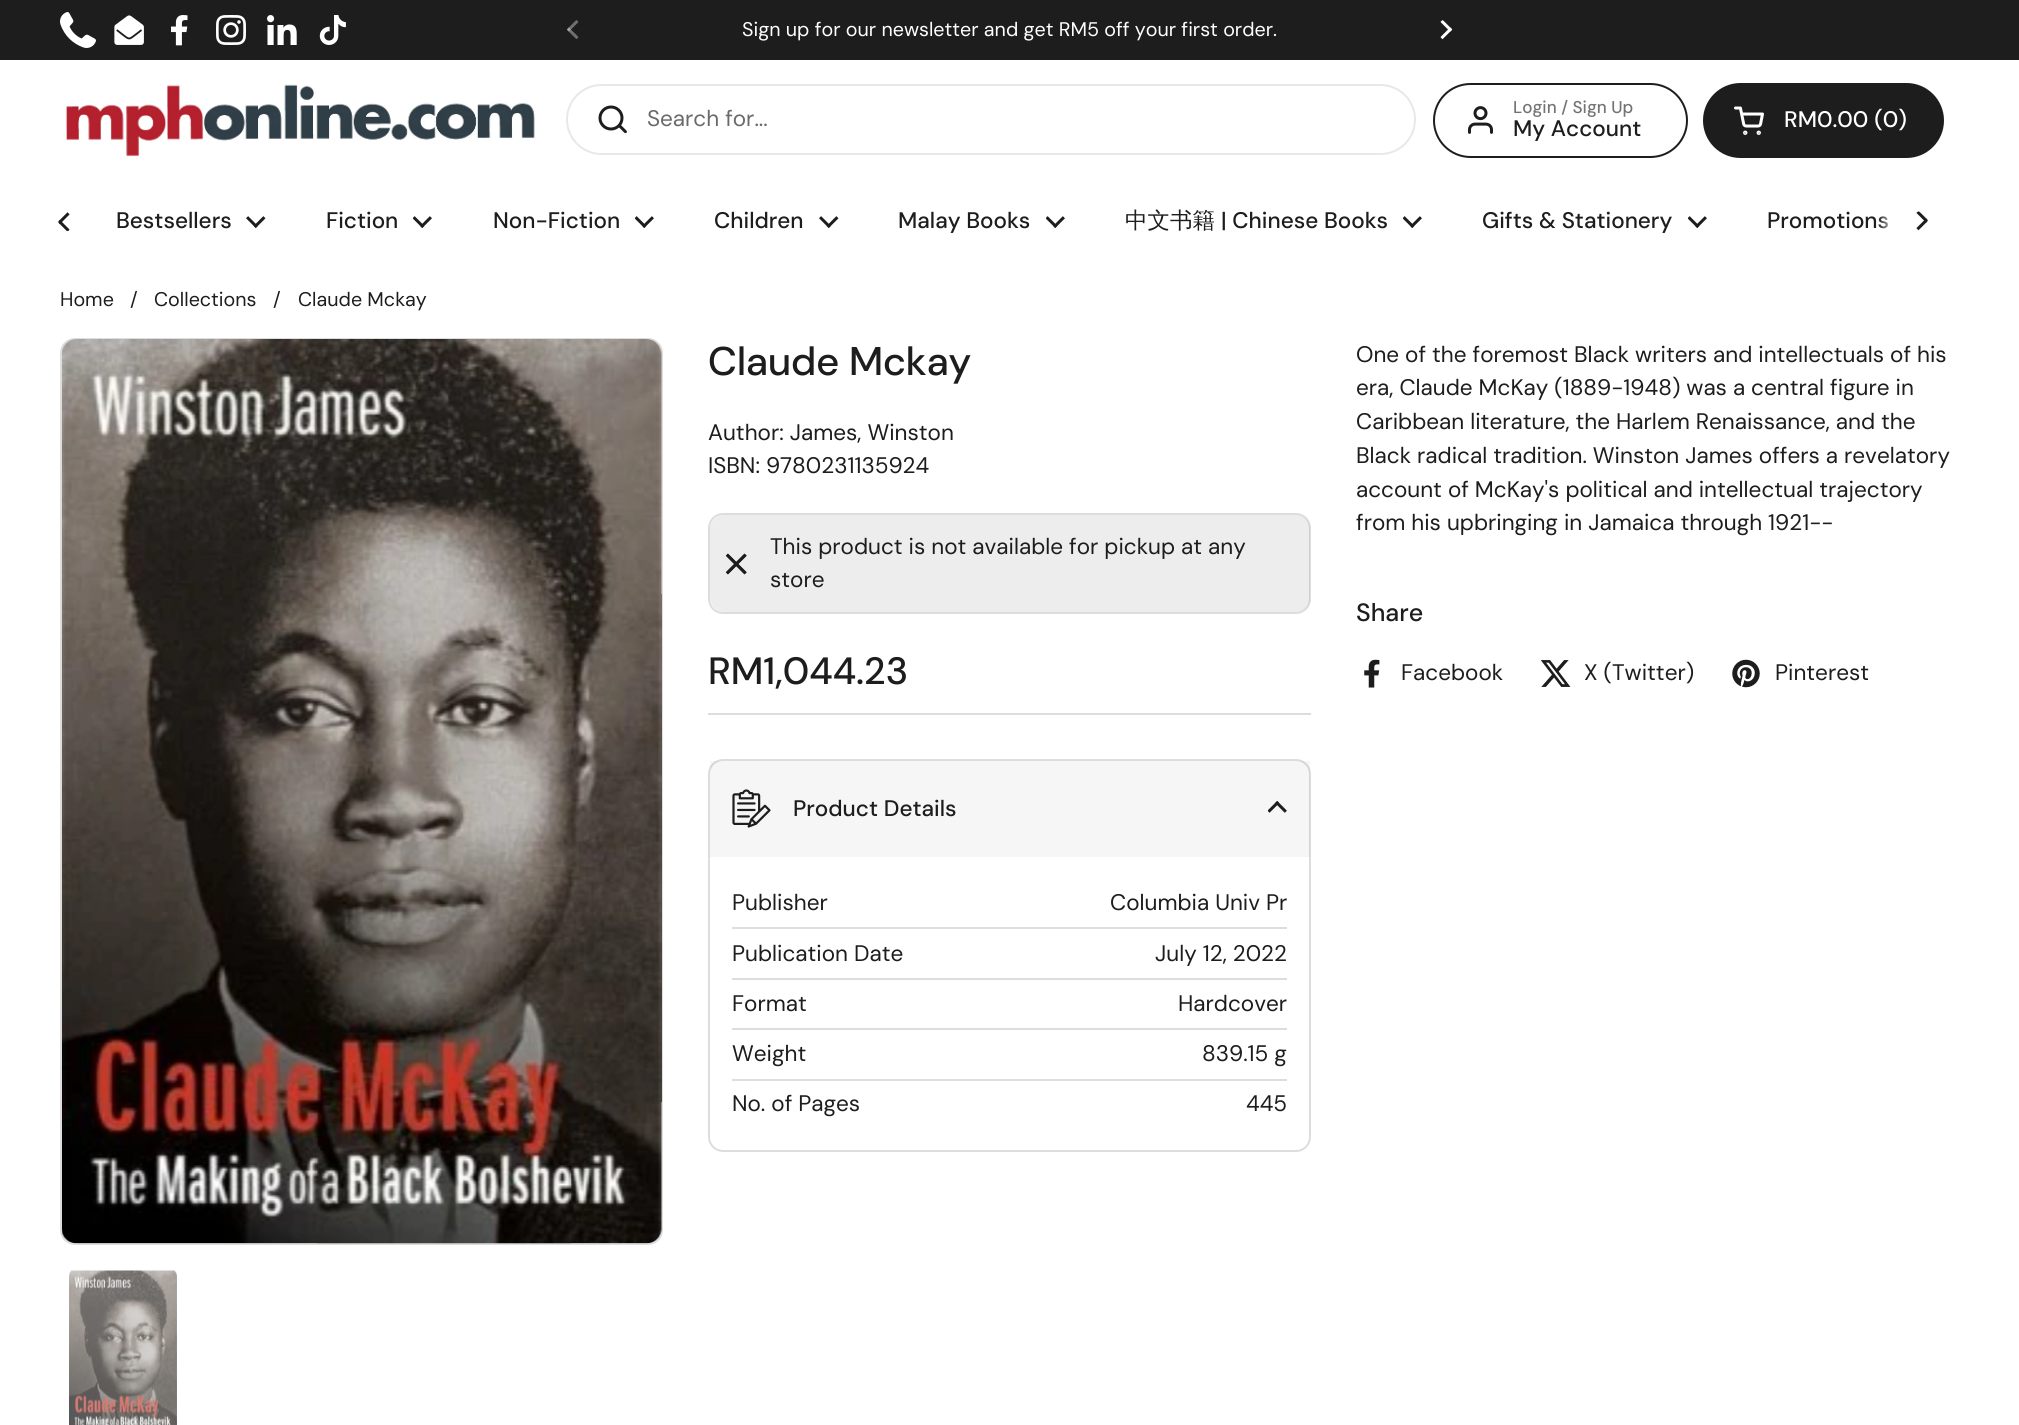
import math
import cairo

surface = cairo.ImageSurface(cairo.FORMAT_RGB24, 2019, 1425)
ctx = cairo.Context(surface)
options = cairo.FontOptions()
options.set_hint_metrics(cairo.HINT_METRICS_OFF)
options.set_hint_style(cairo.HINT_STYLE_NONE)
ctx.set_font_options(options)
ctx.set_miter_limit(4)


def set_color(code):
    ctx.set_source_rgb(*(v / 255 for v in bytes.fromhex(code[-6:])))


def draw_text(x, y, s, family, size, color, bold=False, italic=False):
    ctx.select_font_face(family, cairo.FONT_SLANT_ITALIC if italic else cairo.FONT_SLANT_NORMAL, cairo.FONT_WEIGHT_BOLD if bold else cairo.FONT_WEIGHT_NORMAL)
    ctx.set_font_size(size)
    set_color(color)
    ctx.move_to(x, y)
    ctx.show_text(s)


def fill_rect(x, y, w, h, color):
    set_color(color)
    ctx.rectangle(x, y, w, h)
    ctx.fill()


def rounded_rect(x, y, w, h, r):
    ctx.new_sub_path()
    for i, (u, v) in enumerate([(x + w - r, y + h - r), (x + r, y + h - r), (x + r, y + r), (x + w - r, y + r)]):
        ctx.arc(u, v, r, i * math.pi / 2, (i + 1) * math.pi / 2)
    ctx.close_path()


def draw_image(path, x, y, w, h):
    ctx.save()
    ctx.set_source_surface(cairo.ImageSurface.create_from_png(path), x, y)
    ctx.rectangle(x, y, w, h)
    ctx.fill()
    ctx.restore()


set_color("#ffffff")
ctx.paint()
fill_rect(0, 0, 2019, 60, "#1d1d1d")
draw_image("assets/img1.png", 60, 12, 36, 36)
draw_image("assets/img2.png", 114, 15, 30, 30)
draw_image("assets/img3.png", 171, 15, 17, 31)
draw_image("assets/img4.png", 216, 15, 30, 30)
draw_image("assets/img5.png", 267, 15, 30, 30)
draw_image("assets/img6.png", 319, 15, 27, 30)
draw_image("assets/img7.png", 567, 20, 12, 19)
draw_text(742, 36, "Sign up for our newsletter and get RM5 off your first order.", "DM Sans", 19.7, "#ffffff")
draw_image("assets/img8.png", 1440, 20, 13, 20)
draw_image("assets/img9.png", 65, 84, 471, 73)
rounded_rect(567, 85, 848, 69, 34.5)
set_color("#e8e8e8")
ctx.stroke()
draw_image("assets/img10.png", 598, 105, 29, 29)
draw_text(647, 126, "Search for...", "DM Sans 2", 22.5, "#6a6a6a")
rounded_rect(1434, 84, 253, 73, 36.5)
set_color("#1d1d1d")
ctx.stroke()
draw_image("assets/img11.png", 1468, 106, 25, 28)
draw_text(1513, 113, "Login / Sign Up", "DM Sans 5 Medium", 17, "#737373")
draw_text(1513, 136, "My Account", "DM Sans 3 Medium", 22.5, "#1d1d1d")
rounded_rect(1704, 84, 239, 73, 36.5)
ctx.fill_preserve()
ctx.stroke()
draw_image("assets/img12.png", 1734, 106, 30, 29)
draw_text(1784, 127, "RM0.00 (0)", "DM Sans 3 Medium", 22.5, "#ffffff")
draw_image("assets/img13.png", 58, 212, 12, 19)
draw_text(116, 228, "Bestsellers", "DM Sans 3 Medium", 22.5, "#1d1d1d")
draw_image("assets/img14.png", 246, 216, 20, 12)
draw_text(326, 228, "Fiction", "DM Sans 3 Medium", 22.5, "#1d1d1d")
draw_image("assets/img15.png", 413, 216, 19, 12)
draw_text(493, 228, "Non-Fiction", "DM Sans 3 Medium", 22.5, "#1d1d1d")
draw_image("assets/img15.png", 635, 216, 19, 12)
draw_text(714, 228, "Children", "DM Sans 3 Medium", 22.5, "#1d1d1d")
draw_image("assets/img14.png", 819, 216, 20, 12)
draw_text(898, 228, "Malay Books", "DM Sans 3 Medium", 22.5, "#1d1d1d")
draw_image("assets/img15.png", 1046, 216, 19, 12)
draw_text(1125, 228, "中文书籍", "WenQuanYi Zen Hei Medium", 22.5, "#1d1d1d")
draw_text(1221, 228, "| Chinese Books", "DM Sans 3 Medium", 22.5, "#1d1d1d")
draw_image("assets/img15.png", 1403, 216, 19, 12)
draw_text(1482, 228, "Gifts & Stationery", "DM Sans 3 Medium", 22.5, "#1d1d1d")
draw_image("assets/img15.png", 1688, 216, 19, 12)
draw_text(1767, 228, "Promotions", "DM Sans 3 Medium", 22.5, "#1d1d1d")
gradient = cairo.LinearGradient(1916, 221, 1878, 221)
gradient.add_color_stop_rgba(0.5, 1, 1, 1, 1)
gradient.add_color_stop_rgba(1, 1, 1, 1, 0)
ctx.set_source(gradient)
ctx.rectangle(1879, 216, 10, 13)
ctx.fill()
draw_image("assets/img16.png", 1916, 211, 12, 20)
draw_text(60, 306, "Home", "DM Sans", 19.7, "#1d1d1d")
draw_text(130, 306, "/", "DM Sans", 19.7, "#1d1d1d")
draw_text(154, 306, "Collections", "DM Sans", 19.7, "#1d1d1d")
draw_text(273, 306, "/", "DM Sans", 19.7, "#1d1d1d")
draw_text(298, 306, "Claude Mckay", "DM Sans", 19.7, "#1d1d1d")
rounded_rect(61, 339, 601, 905, 14)
set_color("#dddddd")
ctx.stroke()
draw_image("assets/img17.png", 62, 339, 600, 905)
draw_image("assets/img18.png", 69, 1270, 108, 155)
draw_text(708, 375, "Claude Mckay", "DM Sans Medium", 40, "#1d1d1d")
draw_text(708, 440, "Author: James, Winston", "DM Sans 2", 22.5, "#1d1d1d")
draw_text(708, 473, "ISBN: 9780231135924", "DM Sans 2", 22.5, "#1d1d1d")
rounded_rect(709, 514, 601, 99, 14)
set_color("#dddddd")
ctx.stroke()
ctx.set_source_rgba(0.114, 0.114, 0.114, 0.08)
rounded_rect(710, 515, 600, 97, 14)
ctx.fill()
draw_text(770, 554, "This product is not available for pickup at any", "DM Sans 2", 22.5, "#1d1d1d")
draw_image("assets/img19.png", 725, 553, 22, 22)
draw_text(770, 587, "store", "DM Sans 2", 22.5, "#1d1d1d")
draw_text(708, 684, "RM1,044.23", "DM Sans 2 Medium", 38, "#1d1d1d")
fill_rect(708, 713, 603, 2, "#dddddd")
rounded_rect(709, 760, 601, 391, 14)
ctx.stroke()
ctx.set_source_rgba(0.114, 0.114, 0.114, 0.04)
ctx.rectangle(710, 761, 600, 96)
ctx.fill()
draw_image("assets/img20.png", 732, 789, 39, 39)
draw_text(793, 816, "Product Details", "DM Sans 3 Medium", 22.5, "#1d1d1d")
draw_image("assets/img21.png", 1268, 801, 19, 12)
fill_rect(732, 927, 555, 2, "#dddddd")
draw_text(732, 910, "Publisher", "DM Sans 2", 22.5, "#1d1d1d")
draw_text(1110, 910, "Columbia Univ Pr", "DM Sans 2", 22.5, "#1d1d1d")
fill_rect(732, 978, 555, 2, "#dddddd")
draw_text(732, 961, "Publication Date", "DM Sans 2", 22.5, "#1d1d1d")
draw_text(1155, 961, "July 12, 2022", "DM Sans 2", 22.5, "#1d1d1d")
fill_rect(732, 1028, 555, 2, "#dddddd")
draw_text(732, 1011, "Format", "DM Sans 2", 22.5, "#1d1d1d")
draw_text(1178, 1011, "Hardcover", "DM Sans 2", 22.5, "#1d1d1d")
fill_rect(732, 1079, 555, 2, "#dddddd")
draw_text(732, 1061, "Weight", "DM Sans 2", 22.5, "#1d1d1d")
draw_text(1202, 1061, "839.15 g", "DM Sans 2", 22.5, "#1d1d1d")
draw_text(732, 1111, "No. of Pages", "DM Sans 2", 22.5, "#1d1d1d")
draw_text(1246, 1111, "445", "DM Sans 2", 22.5, "#1d1d1d")
draw_text(1356, 362, "One of the foremost Black writers and intellectuals of his", "DM Sans 2", 22.5, "#1d1d1d")
draw_text(1356, 395, "era, Claude McKay (1889-1948) was a central figure in", "DM Sans 2", 22.5, "#1d1d1d")
draw_text(1356, 429, "Caribbean literature, the Harlem Renaissance, and the", "DM Sans 2", 22.5, "#1d1d1d")
draw_text(1356, 463, "Black radical tradition. Winston James offers a revelatory", "DM Sans 2", 22.5, "#1d1d1d")
draw_text(1356, 497, "account of McKay's political and intellectual trajectory", "DM Sans 2", 22.5, "#1d1d1d")
draw_text(1356, 530, "from his upbringing in Jamaica through 1921--", "DM Sans 2", 22.5, "#1d1d1d")
draw_text(1356, 621, "Share", "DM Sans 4 Medium", 25, "#1d1d1d")
draw_image("assets/img22.png", 1364, 659, 16, 29)
draw_text(1401, 680, "Facebook", "DM Sans 2", 22.5, "#1d1d1d")
draw_image("assets/img23.png", 1540, 660, 31, 27)
draw_text(1584, 680, "X (Twitter)", "DM Sans 2", 22.5, "#1d1d1d")
draw_image("assets/img24.png", 1732, 659, 28, 29)
draw_text(1775, 680, "Pinterest", "DM Sans 2", 22.5, "#1d1d1d")
surface.write_to_png("output.png")
